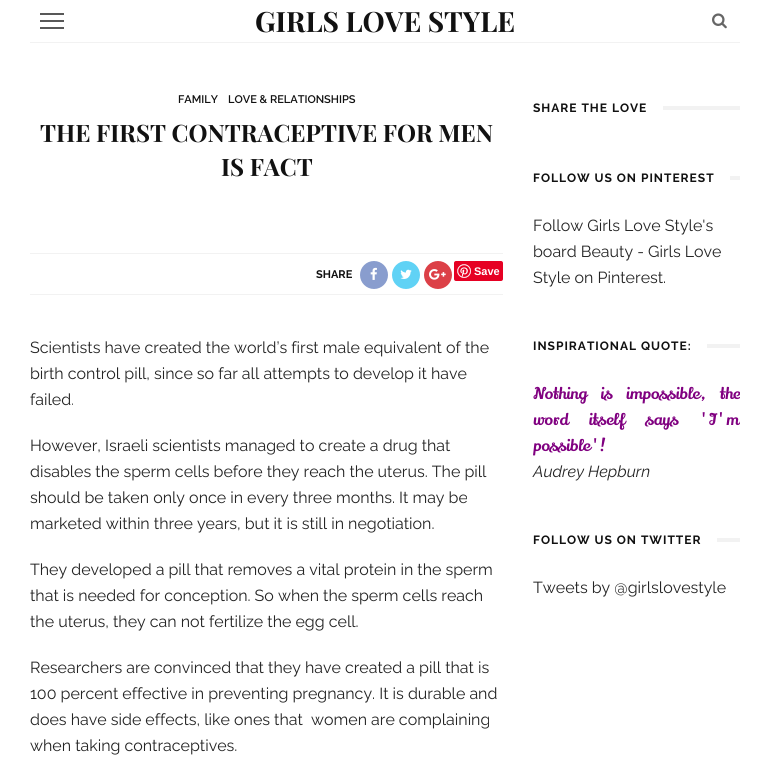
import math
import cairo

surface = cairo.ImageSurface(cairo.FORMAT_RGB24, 770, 765)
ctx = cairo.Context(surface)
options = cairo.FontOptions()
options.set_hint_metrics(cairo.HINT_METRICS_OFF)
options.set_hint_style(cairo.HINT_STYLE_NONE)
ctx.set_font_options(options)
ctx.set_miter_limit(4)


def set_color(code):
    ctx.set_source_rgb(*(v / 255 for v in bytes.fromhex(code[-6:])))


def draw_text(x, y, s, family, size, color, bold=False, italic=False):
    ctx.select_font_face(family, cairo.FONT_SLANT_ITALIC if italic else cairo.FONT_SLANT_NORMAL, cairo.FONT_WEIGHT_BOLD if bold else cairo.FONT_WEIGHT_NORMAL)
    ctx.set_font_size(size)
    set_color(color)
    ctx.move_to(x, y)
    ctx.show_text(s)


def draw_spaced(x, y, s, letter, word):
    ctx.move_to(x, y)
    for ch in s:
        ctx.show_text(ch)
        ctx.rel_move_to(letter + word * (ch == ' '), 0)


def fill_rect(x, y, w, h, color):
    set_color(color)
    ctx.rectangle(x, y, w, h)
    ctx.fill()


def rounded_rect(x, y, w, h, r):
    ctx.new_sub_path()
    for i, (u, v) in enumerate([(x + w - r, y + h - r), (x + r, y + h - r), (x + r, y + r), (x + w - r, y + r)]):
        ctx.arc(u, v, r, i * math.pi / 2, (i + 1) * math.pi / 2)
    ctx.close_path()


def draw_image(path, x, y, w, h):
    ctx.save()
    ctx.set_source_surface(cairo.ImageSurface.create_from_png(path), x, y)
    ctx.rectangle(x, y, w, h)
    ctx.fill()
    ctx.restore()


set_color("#ffffff")
ctx.paint()
fill_rect(30, 42, 710, 1, "#f2f2f2")
fill_rect(40, 20, 24, 2, "#585858")
fill_rect(40, 13, 24, 2, "#585858")
fill_rect(40, 27, 24, 2, "#585858")
draw_text(255, 32, "GIRLS LOVE STYLE", "Playfair Display", 28, "#111111", bold=True)
draw_image("assets/img1.png", 712, 13, 15, 16)
draw_text(178, 103, "FAMILY", "Raleway SemiBold", 11, "#111111")
draw_text(228, 103, "LOVE & RELATIONSHIPS", "Raleway SemiBold", 11, "#111111")
draw_text(40, 142, "THE FIRST CONTRACEPTIVE FOR MEN", "Playfair Display", 24, "#111111", bold=True)
draw_text(221, 176, "IS FACT", "Playfair Display", 24, "#111111", bold=True)
fill_rect(30, 253, 473, 1, "#f2f2f2")
fill_rect(30, 294, 473, 1, "#f2f2f2")
draw_text(316, 278, "SHARE", "Raleway", 11, "#111111", bold=True)
set_color("#899dce")
ctx.new_path()
ctx.arc(374, 275, 14, 0, 2 * math.pi)
ctx.fill()
draw_image("assets/img2.png", 370, 267, 7, 13)
set_color("#60d2f5")
ctx.arc(406, 275, 14, 0, 2 * math.pi)
ctx.fill()
draw_image("assets/img3.png", 400, 269, 12, 10)
set_color("#dc4047")
ctx.arc(438, 275, 14, 0, 2 * math.pi)
ctx.fill()
draw_image("assets/img4.png", 429, 269, 17, 11)
set_color("#e60023")
rounded_rect(454, 261, 49, 20, 2)
ctx.fill()
draw_image("assets/img5.png", 457, 264, 14, 14)
draw_text(474, 275, "Save", "Liberation Sans", 11, "#ffffff", bold=True)
draw_text(30, 353, "Scientists have created the world’s first male equivalent of the", "Raleway", 16, "#242424")
draw_text(30, 379, "birth control pill, since so far all attempts to develop it have", "Raleway", 16, "#242424")
draw_text(30, 405, "failed.", "Raleway", 16, "#242424")
draw_text(30, 451, "However, Israeli scientists managed to create a drug that", "Raleway", 16, "#242424")
draw_text(30, 477, "disables the sperm cells before they reach the uterus. The pill", "Raleway", 16, "#242424")
draw_text(30, 503, "should be taken only once in every three months. It may be", "Raleway", 16, "#242424")
draw_text(30, 529, "marketed within three years, but it is still in negotiation.", "Raleway", 16, "#242424")
draw_text(30, 575, "They developed a pill that removes a vital protein in the sperm", "Raleway", 16, "#242424")
draw_text(30, 601, "that is needed for conception. So when the sperm cells reach", "Raleway", 16, "#242424")
draw_text(30, 627, "the uterus, they can not fertilize the egg cell.", "Raleway", 16, "#242424")
draw_text(30, 673, "Researchers are convinced that they have created a pill that is", "Raleway", 16, "#242424")
draw_text(30, 699, "100 percent effective in preventing pregnancy. It is durable and", "Raleway", 16, "#242424")
draw_text(30, 725, "does have side effects, like ones that  women are complaining", "Raleway", 16, "#242424")
draw_text(30, 751, "when taking contraceptives.", "Raleway", 16, "#242424")
ctx.select_font_face("Raleway", cairo.FONT_SLANT_NORMAL, cairo.FONT_WEIGHT_BOLD)
ctx.set_font_size(12)
set_color("#111111")
draw_spaced(533, 112, "SHARE THE LOVE", 1, 0)
fill_rect(663, 106, 77, 4, "#f2f2f2")
set_color("#111111")
draw_spaced(533, 182, "FOLLOW US ON PINTEREST", 1, 0)
fill_rect(730, 176, 10, 4, "#f2f2f2")
draw_text(533, 231, "Follow Girls Love Style's", "Raleway", 16, "#242424")
draw_text(533, 257, "board Beauty - Girls Love", "Raleway", 16, "#242424")
draw_text(533, 283, "Style on Pinterest.", "Raleway", 16, "#242424")
ctx.select_font_face("Raleway", cairo.FONT_SLANT_NORMAL, cairo.FONT_WEIGHT_BOLD)
ctx.set_font_size(12)
set_color("#111111")
draw_spaced(533, 350, "INSPIRATIONAL QUOTE:", 1, 0)
fill_rect(707, 344, 33, 4, "#f2f2f2")
ctx.save()
ctx.rectangle(533, 93, 207, 548)
ctx.clip()
ctx.select_font_face("Lily Script One")
ctx.set_font_size(16)
set_color("#800080")
draw_spaced(533, 399, "Nothing is impossible, the", 0, 10)
draw_spaced(533, 425, "word itself says 'I'm", 0, 17)
ctx.restore()
draw_text(533, 451, "possible'!", "Lily Script One", 16, "#800080")
draw_text(533, 477, "Audrey Hepburn", "Raleway", 16, "#242424", italic=True)
ctx.select_font_face("Raleway", cairo.FONT_SLANT_NORMAL, cairo.FONT_WEIGHT_BOLD)
ctx.set_font_size(12)
set_color("#111111")
draw_spaced(533, 544, "FOLLOW US ON TWITTER", 1, 0)
fill_rect(717, 538, 23, 4, "#f2f2f2")
draw_text(533, 593, "Tweets by @girlslovestyle", "Raleway", 16, "#242424")
surface.write_to_png("output.png")
